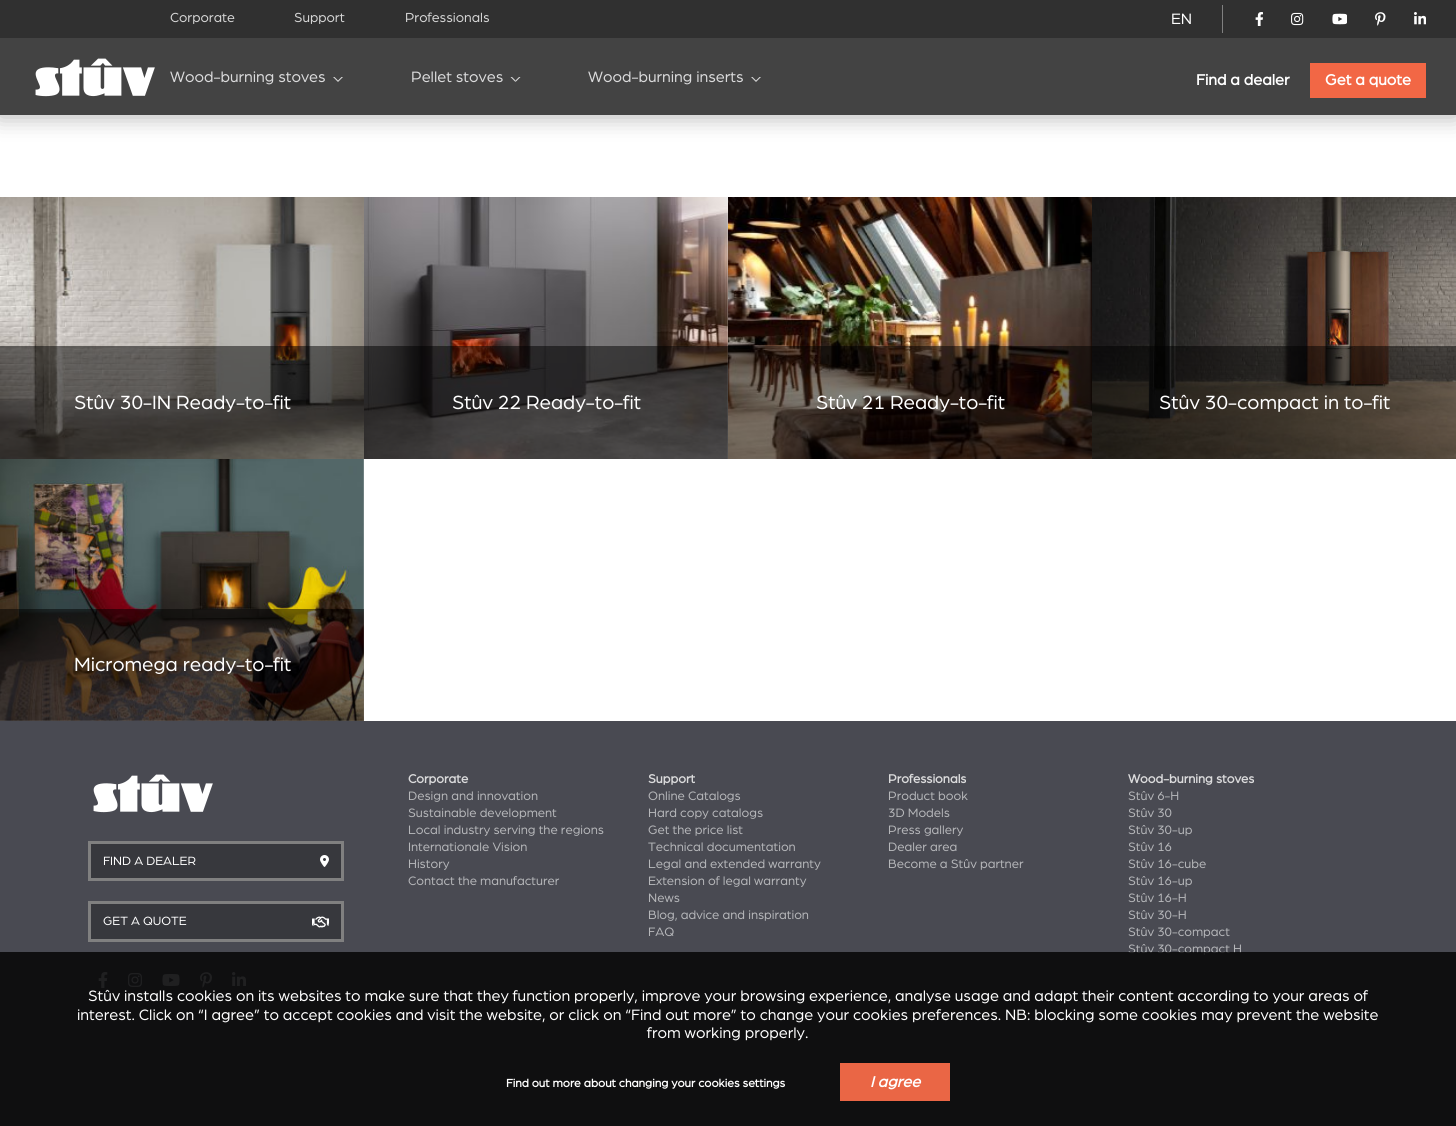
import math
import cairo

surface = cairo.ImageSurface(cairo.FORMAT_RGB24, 1456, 1126)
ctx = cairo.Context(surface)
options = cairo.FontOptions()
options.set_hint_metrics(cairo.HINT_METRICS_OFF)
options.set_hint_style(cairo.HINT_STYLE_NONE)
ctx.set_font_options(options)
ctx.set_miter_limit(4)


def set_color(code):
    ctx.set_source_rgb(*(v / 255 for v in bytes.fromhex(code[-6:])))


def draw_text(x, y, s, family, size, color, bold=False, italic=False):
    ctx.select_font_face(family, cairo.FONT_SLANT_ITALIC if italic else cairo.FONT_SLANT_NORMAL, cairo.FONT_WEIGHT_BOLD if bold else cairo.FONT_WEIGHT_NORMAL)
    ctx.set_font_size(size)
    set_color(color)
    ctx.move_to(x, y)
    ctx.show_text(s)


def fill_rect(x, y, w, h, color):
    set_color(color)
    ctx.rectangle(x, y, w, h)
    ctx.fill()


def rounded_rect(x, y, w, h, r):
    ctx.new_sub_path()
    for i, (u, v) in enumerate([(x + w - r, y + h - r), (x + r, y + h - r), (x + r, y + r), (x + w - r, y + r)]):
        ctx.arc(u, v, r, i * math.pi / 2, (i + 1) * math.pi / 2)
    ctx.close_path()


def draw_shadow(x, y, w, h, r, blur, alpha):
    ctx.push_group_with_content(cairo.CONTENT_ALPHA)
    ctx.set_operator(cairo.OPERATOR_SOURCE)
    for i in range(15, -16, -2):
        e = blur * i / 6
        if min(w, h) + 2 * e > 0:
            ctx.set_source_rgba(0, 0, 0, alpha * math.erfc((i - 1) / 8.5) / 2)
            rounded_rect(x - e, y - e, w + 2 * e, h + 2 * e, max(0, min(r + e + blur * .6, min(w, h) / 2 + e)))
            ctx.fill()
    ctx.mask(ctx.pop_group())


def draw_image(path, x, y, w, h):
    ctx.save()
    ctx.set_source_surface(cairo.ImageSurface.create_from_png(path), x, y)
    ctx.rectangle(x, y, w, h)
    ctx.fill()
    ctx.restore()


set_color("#ffffff")
ctx.paint()
set_color("#000000")
draw_shadow(-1, 0, 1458, 117, 0, 11.5, 0.3)
fill_rect(0, 38, 1456, 77, "#434343")
fill_rect(0, 0, 1456, 38, "#303030")
draw_text(170, 22, "Corporate", "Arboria", 14, "#d6d6d6")
draw_text(294, 22, "Support", "Arboria", 14, "#d6d6d6")
draw_text(405, 22, "Professionals", "Arboria", 14, "#d6d6d6")
fill_rect(1222, 5, 1, 28, "#808080")
draw_text(1171, 24, "EN", "Arboria", 16, "#ffffff")
draw_image("assets/img1.png", 1255, 12, 8, 14)
draw_image("assets/img2.png", 1291, 12, 13, 14)
draw_image("assets/img3.png", 1332, 13, 15, 12)
draw_image("assets/img4.png", 1375, 12, 11, 14)
draw_image("assets/img5.png", 1414, 12, 12, 13)
draw_image("assets/img6.png", 35, 58, 120, 39)
draw_text(170, 82, "Wood-burning stoves", "Arboria", 16, "#dbdbdc")
set_color("#d9d9d9")
ctx.new_path()
ctx.move_to(343, 77)
ctx.line_to(338, 82)
ctx.line_to(338, 80.5)
ctx.line_to(341.5, 77)
ctx.close_path()
ctx.move_to(338, 82)
ctx.line_to(333, 77)
ctx.line_to(334.5, 77)
ctx.line_to(338, 80.5)
ctx.close_path()
ctx.fill()
draw_text(411, 82, "Pellet stoves", "Arboria", 16, "#dbdbdc")
set_color("#d9d9d9")
ctx.new_path()
ctx.move_to(520.5, 77)
ctx.line_to(515.5, 82)
ctx.line_to(515.5, 80.5)
ctx.line_to(519, 77)
ctx.close_path()
ctx.fill()
ctx.new_path()
ctx.move_to(515.5, 82)
ctx.line_to(510.5, 77)
ctx.line_to(512, 77)
ctx.line_to(515.5, 80.5)
ctx.close_path()
ctx.fill()
draw_text(588, 82, "Wood-burning inserts", "Arboria", 16, "#dbdbdc")
set_color("#d9d9d9")
ctx.new_path()
ctx.move_to(761, 77)
ctx.line_to(756, 82)
ctx.line_to(756, 80.5)
ctx.line_to(759.5, 77)
ctx.close_path()
ctx.move_to(756, 82)
ctx.line_to(751, 77)
ctx.line_to(752.5, 77)
ctx.line_to(756, 80.5)
ctx.close_path()
ctx.fill()
draw_text(1196, 85, "Find a dealer", "Arboria", 16, "#ffffff", bold=True)
fill_rect(1310, 63, 116, 35, "#f26745")
draw_text(1325, 85, "Get a quote", "Arboria", 16, "#ffffff", bold=True)
draw_image("assets/img7.png", 0, 197, 364, 262)
ctx.set_source_rgba(0, 0, 0, 0.5)
ctx.rectangle(0, 346, 364, 113)
ctx.fill()
draw_text(74, 409, "Stûv 30-IN Ready-to-fit", "Arboria", 20.4, "#ffffff")
draw_image("assets/img8.png", 364, 197, 364, 262)
ctx.set_source_rgba(0, 0, 0, 0.5)
ctx.rectangle(364, 346, 364, 113)
ctx.fill()
draw_text(452, 409, "Stûv 22 Ready-to-fit", "Arboria", 20.4, "#ffffff")
draw_image("assets/img9.png", 728, 197, 364, 262)
ctx.set_source_rgba(0, 0, 0, 0.5)
ctx.rectangle(728, 346, 364, 113)
ctx.fill()
draw_text(816, 409, "Stûv 21 Ready-to-fit", "Arboria", 20.4, "#ffffff")
draw_image("assets/img10.png", 1092, 197, 364, 262)
ctx.set_source_rgba(0, 0, 0, 0.5)
ctx.rectangle(1092, 346, 364, 113)
ctx.fill()
draw_text(1159, 409, "Stûv 30-compact in to-fit", "Arboria", 20.4, "#ffffff")
draw_image("assets/img11.png", 0, 459, 364, 262)
ctx.set_source_rgba(0, 0, 0, 0.5)
ctx.rectangle(0, 609, 364, 112)
ctx.fill()
draw_text(74, 671, "Micromega ready-to-fit", "Arboria", 20.4, "#ffffff")
fill_rect(0, 721, 1456, 405, "#494a52")
draw_image("assets/img12.png", 93, 774, 120, 39)
set_color("#37383d")
ctx.rectangle(89.5, 842.5, 253, 37)
ctx.fill_preserve()
set_color("#808080")
ctx.set_line_width(3)
ctx.stroke()
draw_text(103, 865, "FIND A DEALER", "Arboria", 12.75, "#ffffff")
draw_image("assets/img13.png", 320, 855, 9, 12)
set_color("#37383d")
ctx.rectangle(89.5, 902.5, 253, 38)
ctx.fill_preserve()
set_color("#808080")
ctx.stroke()
draw_text(103, 925, "GET A QUOTE", "Arboria", 12.75, "#ffffff")
draw_image("assets/img14.png", 312, 916, 17, 12)
draw_image("assets/img15.png", 98, 972, 10, 16)
draw_image("assets/img16.png", 128, 973, 14, 14)
draw_image("assets/img17.png", 162, 974, 18, 12)
draw_image("assets/img18.png", 200, 972, 12, 16)
draw_image("assets/img19.png", 232, 972, 14, 14)
draw_text(408, 783, "Corporate", "Arboria", 13, "#dbdbdc", bold=True)
draw_text(408, 800, "Design and innovation", "Arboria", 13, "#b6b7ba")
draw_text(408, 817, "Sustainable development", "Arboria", 13, "#b6b7ba")
draw_text(408, 834, "Local industry serving the regions", "Arboria", 13, "#b6b7ba")
draw_text(408, 851, "Internationale Vision", "Arboria", 13, "#b6b7ba")
draw_text(408, 868, "History", "Arboria", 13, "#b6b7ba")
draw_text(408, 885, "Contact the manufacturer", "Arboria", 13, "#b6b7ba")
draw_text(648, 783, "Support", "Arboria", 13, "#dbdbdc", bold=True)
draw_text(648, 800, "Online Catalogs", "Arboria", 13, "#b6b7ba")
draw_text(648, 817, "Hard copy catalogs", "Arboria", 13, "#b6b7ba")
draw_text(648, 834, "Get the price list", "Arboria", 13, "#b6b7ba")
draw_text(648, 851, "Technical documentation", "Arboria", 13, "#b6b7ba")
draw_text(648, 868, "Legal and extended warranty", "Arboria", 13, "#b6b7ba")
draw_text(648, 885, "Extension of legal warranty", "Arboria", 13, "#b6b7ba")
draw_text(648, 902, "News", "Arboria", 13, "#b6b7ba")
draw_text(648, 919, "Blog, advice and inspiration", "Arboria", 13, "#b6b7ba")
draw_text(648, 936, "FAQ", "Arboria", 13, "#b6b7ba")
draw_text(888, 783, "Professionals", "Arboria", 13, "#dbdbdc", bold=True)
draw_text(888, 800, "Product book", "Arboria", 13, "#b6b7ba")
draw_text(888, 817, "3D Models", "Arboria", 13, "#b6b7ba")
draw_text(888, 834, "Press gallery", "Arboria", 13, "#b6b7ba")
draw_text(888, 851, "Dealer area", "Arboria", 13, "#b6b7ba")
draw_text(888, 868, "Become a Stûv partner", "Arboria", 13, "#b6b7ba")
draw_text(1128, 783, "Wood-burning stoves", "Arboria", 13, "#dbdbdc", bold=True)
draw_text(1128, 800, "Stûv 6-H", "Arboria", 13, "#b6b7ba")
draw_text(1128, 817, "Stûv 30", "Arboria", 13, "#b6b7ba")
draw_text(1128, 834, "Stûv 30-up", "Arboria", 13, "#b6b7ba")
draw_text(1128, 851, "Stûv 16", "Arboria", 13, "#b6b7ba")
draw_text(1128, 868, "Stûv 16-cube", "Arboria", 13, "#b6b7ba")
draw_text(1128, 885, "Stûv 16-up", "Arboria", 13, "#b6b7ba")
draw_text(1128, 902, "Stûv 16-H", "Arboria", 13, "#b6b7ba")
draw_text(1128, 919, "Stûv 30-H", "Arboria", 13, "#b6b7ba")
draw_text(1128, 936, "Stûv 30-compact", "Arboria", 13, "#b6b7ba")
draw_text(1128, 953, "Stûv 30-compact H", "Arboria", 13, "#b6b7ba")
ctx.set_source_rgba(0, 0, 0, 0.8)
ctx.rectangle(0, 952, 1456, 174)
ctx.fill()
draw_text(88, 1001, "Stûv installs cookies on its websites to make sure that they function properly, improve your browsing experience, analyse usage and adapt their content according to your areas of", "Arboria", 16, "#ffffff")
draw_text(77, 1020, "interest. Click on “I agree” to accept cookies and visit the website, or click on “Find out more” to change your cookies preferences. NB: blocking some cookies may prevent the website", "Arboria", 16, "#ffffff")
draw_text(647, 1038, "from working properly.", "Arboria", 16, "#ffffff")
draw_text(506, 1087, "Find out more about changing your cookies settings", "Arboria", 12, "#ffffff", bold=True)
fill_rect(840, 1063, 110, 38, "#ea6645")
draw_text(870, 1087, "I agree", "Arboria", 16, "#ffffff", bold=True, italic=True)
surface.write_to_png("output.png")
